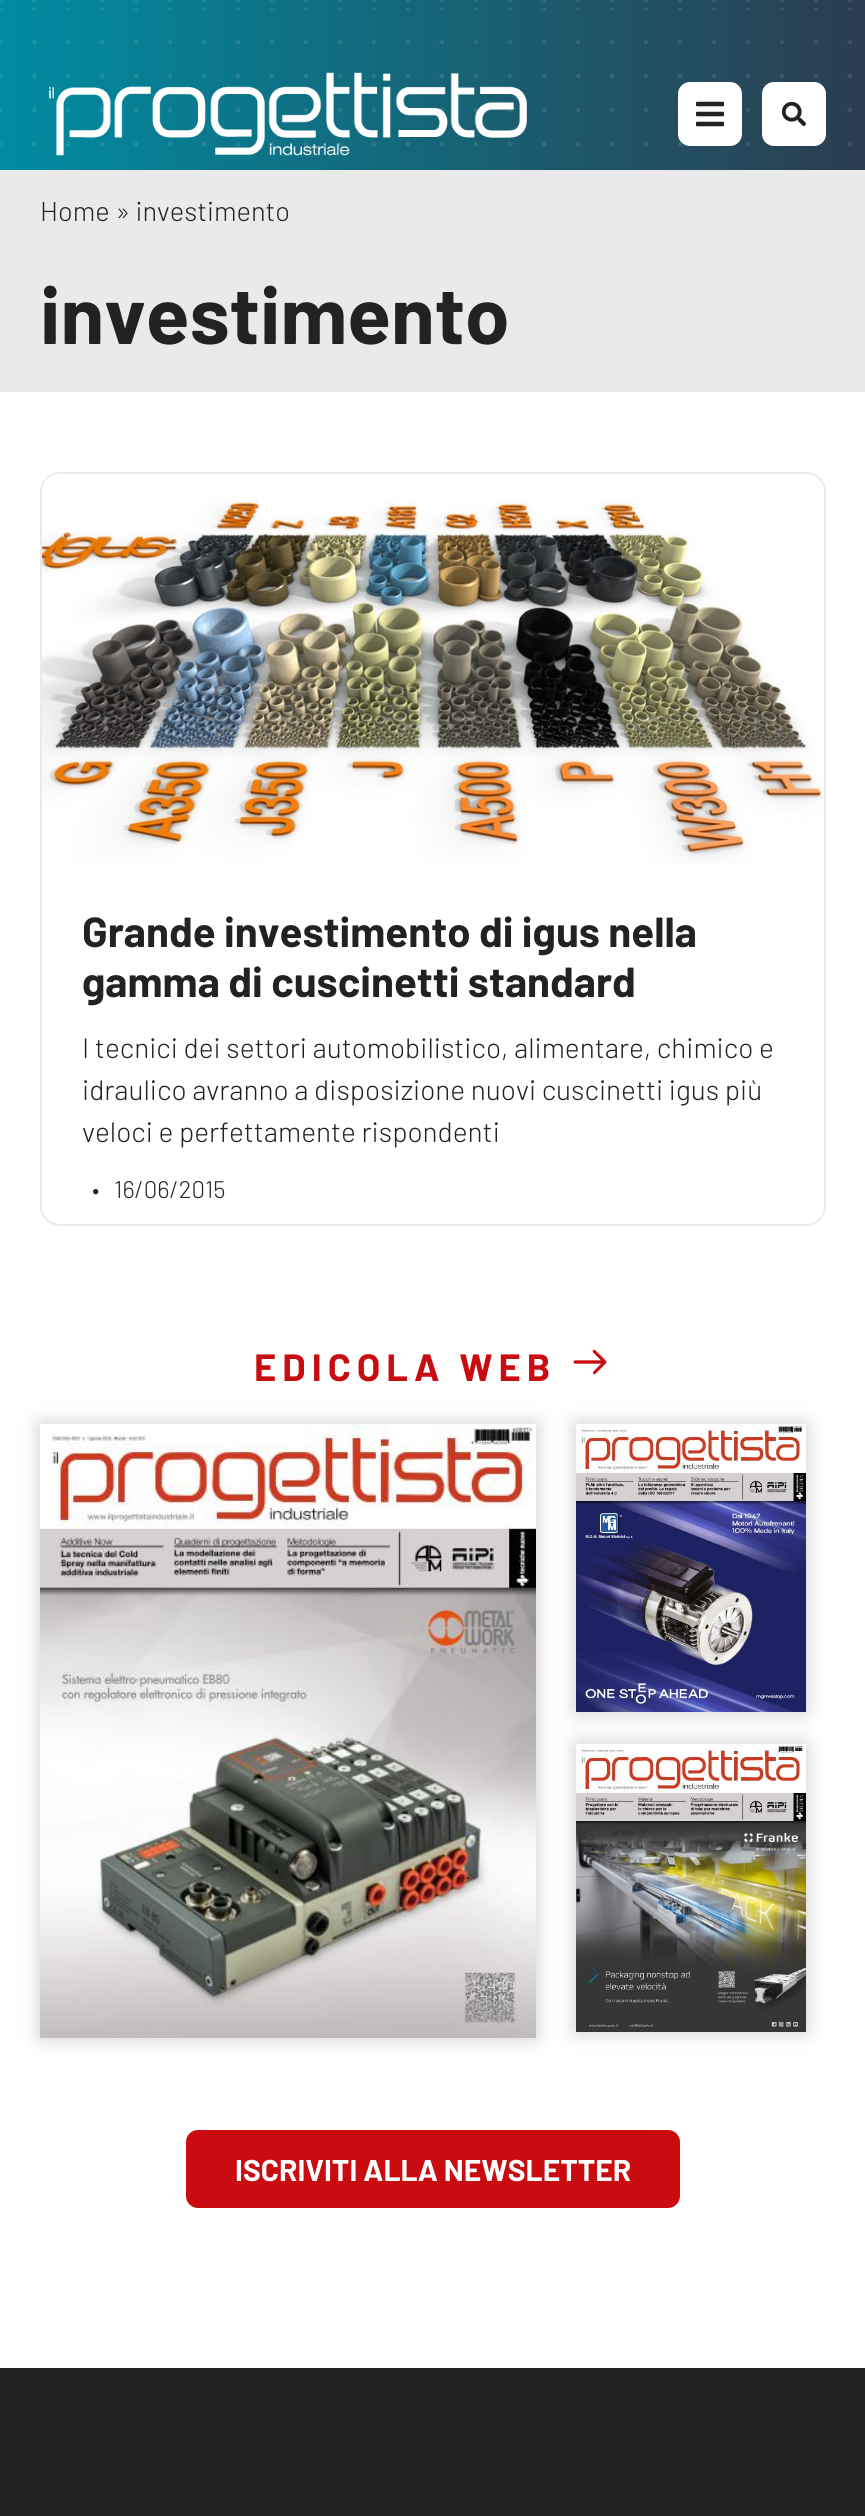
import math
import cairo

surface = cairo.ImageSurface(cairo.FORMAT_RGB24, 865, 2516)
ctx = cairo.Context(surface)
options = cairo.FontOptions()
options.set_hint_metrics(cairo.HINT_METRICS_OFF)
options.set_hint_style(cairo.HINT_STYLE_NONE)
ctx.set_font_options(options)
ctx.set_miter_limit(4)


def set_color(code):
    ctx.set_source_rgb(*(v / 255 for v in bytes.fromhex(code[-6:])))


def draw_text(x, y, s, family, size, color, bold=False, italic=False):
    ctx.select_font_face(family, cairo.FONT_SLANT_ITALIC if italic else cairo.FONT_SLANT_NORMAL, cairo.FONT_WEIGHT_BOLD if bold else cairo.FONT_WEIGHT_NORMAL)
    ctx.set_font_size(size)
    set_color(color)
    ctx.move_to(x, y)
    ctx.show_text(s)


def draw_spaced(x, y, s, letter, word):
    ctx.move_to(x, y)
    for ch in s:
        ctx.show_text(ch)
        ctx.rel_move_to(letter + word * (ch == ' '), 0)


def fill_rect(x, y, w, h, color):
    set_color(color)
    ctx.rectangle(x, y, w, h)
    ctx.fill()


def rounded_rect(x, y, w, h, r):
    ctx.new_sub_path()
    for i, (u, v) in enumerate([(x + w - r, y + h - r), (x + r, y + h - r), (x + r, y + r), (x + w - r, y + r)]):
        ctx.arc(u, v, r, i * math.pi / 2, (i + 1) * math.pi / 2)
    ctx.close_path()


def draw_shadow(x, y, w, h, r, blur, alpha):
    ctx.push_group_with_content(cairo.CONTENT_ALPHA)
    ctx.set_operator(cairo.OPERATOR_SOURCE)
    for i in range(15, -16, -2):
        e = blur * i / 6
        if min(w, h) + 2 * e > 0:
            ctx.set_source_rgba(0, 0, 0, alpha * math.erfc((i - 1) / 8.5) / 2)
            rounded_rect(x - e, y - e, w + 2 * e, h + 2 * e, max(0, min(r + e + blur * .6, min(w, h) / 2 + e)))
            ctx.fill()
    ctx.mask(ctx.pop_group())


def draw_image(path, x, y, w, h):
    ctx.save()
    ctx.set_source_surface(cairo.ImageSurface.create_from_png(path), x, y)
    ctx.rectangle(x, y, w, h)
    ctx.fill()
    ctx.restore()


set_color("#ffffff")
ctx.paint()
gradient = cairo.LinearGradient(0, 52, 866, 52)
gradient.add_color_stop_rgba(0, 0, 0.549, 0.631, 1)
gradient.add_color_stop_rgba(1, 0.169, 0.239, 0.306, 1)
ctx.set_source(gradient)
ctx.rectangle(0, 0, 865, 8)
ctx.fill()
draw_image("assets/img1.png", 0, 0, 853, 3)
gradient = cairo.LinearGradient(0, 89, 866, 89)
gradient.add_color_stop_rgba(0, 0, 0.549, 0.631, 1)
gradient.add_color_stop_rgba(1, 0.169, 0.239, 0.306, 1)
ctx.set_source(gradient)
ctx.rectangle(0, 8, 865, 162)
ctx.fill()
draw_image("assets/img2.png", 0, 8, 853, 139)
draw_image("assets/img3.png", 49, 72, 478, 84)
set_color("#ffffff")
rounded_rect(678, 82, 64, 64, 12)
ctx.fill()
draw_image("assets/img4.png", 696, 101, 28, 26)
rounded_rect(762, 82, 64, 64, 12)
ctx.fill()
draw_image("assets/img5.png", 782, 102, 24, 24)
fill_rect(0, 170, 865, 222, "#eaeaea")
draw_text(40, 221, "Home » investimento", "Barlow Light", 27.25, "#222222")
draw_text(40, 344, "investimento", "Barlow", 80, "#222222", bold=True)
rounded_rect(41, 473, 784, 752, 19)
set_color("#eaeaea")
ctx.stroke()
draw_image("assets/img6.png", 42, 474, 782, 390)
draw_text(82, 947, "Grande investimento di igus nella", "Barlow", 42, "#222222", bold=True)
draw_text(82, 997, "gamma di cuscinetti standard", "Barlow", 42, "#222222", bold=True)
draw_text(82, 1058, "I tecnici dei settori automobilistico, alimentare, chimico e", "Barlow Light", 28, "#222222")
draw_text(82, 1100, "idraulico avranno a disposizione nuovi cuscinetti igus più", "Barlow Light", 28, "#222222")
draw_text(82, 1142, "veloci e perfettamente rispondenti", "Barlow Light", 28, "#222222")
draw_text(92, 1198, "•", "Barlow Light", 24, "#222222")
draw_text(114, 1198, "16/06/2015", "Barlow Light", 24, "#222222")
ctx.select_font_face("Barlow", cairo.FONT_SLANT_NORMAL, cairo.FONT_WEIGHT_BOLD)
ctx.set_font_size(38)
set_color("#c90c0f")
draw_spaced(254, 1381, "EDICOLA WEB", 6, 0)
draw_image("assets/img7.png", 573, 1349, 34, 26)
set_color("#000000")
draw_shadow(40, 1424, 496, 614, 0, 10, 0.2)
draw_image("assets/img8.png", 40, 1424, 496, 614)
draw_shadow(576, 1424, 230, 288, 0, 10, 0.2)
draw_image("assets/img9.png", 576, 1424, 230, 288)
draw_shadow(576, 1744, 230, 288, 0, 10, 0.2)
draw_image("assets/img10.png", 576, 1744, 230, 288)
set_color("#c90c0f")
rounded_rect(186, 2130, 494, 78, 12)
ctx.fill()
draw_text(235, 2181, "ISCRIVITI ALLA NEWSLETTER", "Barlow", 30, "#ffffff", bold=True)
fill_rect(0, 2368, 865, 148, "#222222")
surface.write_to_png("output.png")
